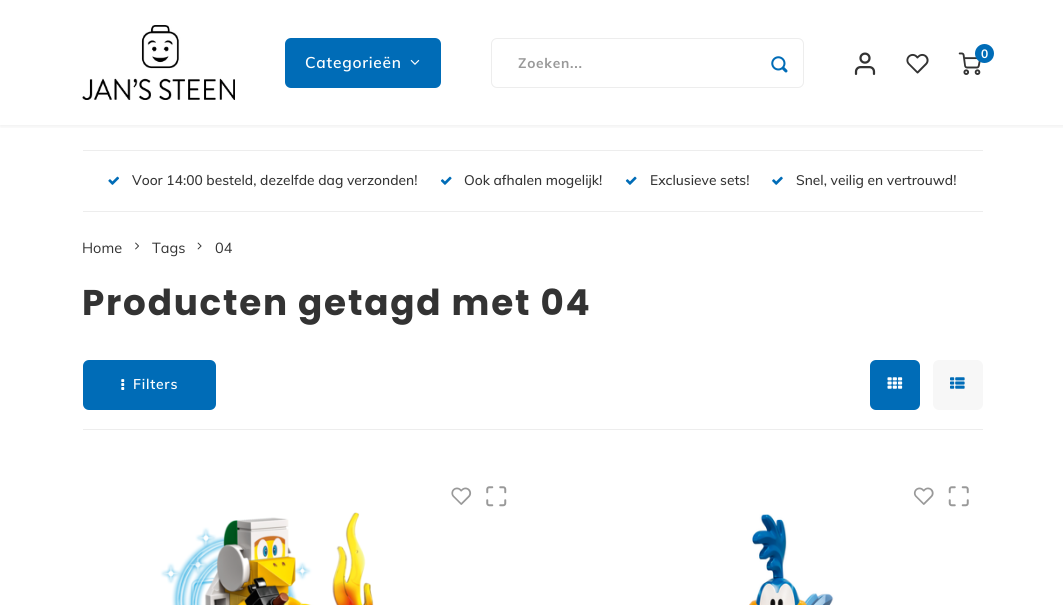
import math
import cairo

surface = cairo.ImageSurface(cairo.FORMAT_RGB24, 1063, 605)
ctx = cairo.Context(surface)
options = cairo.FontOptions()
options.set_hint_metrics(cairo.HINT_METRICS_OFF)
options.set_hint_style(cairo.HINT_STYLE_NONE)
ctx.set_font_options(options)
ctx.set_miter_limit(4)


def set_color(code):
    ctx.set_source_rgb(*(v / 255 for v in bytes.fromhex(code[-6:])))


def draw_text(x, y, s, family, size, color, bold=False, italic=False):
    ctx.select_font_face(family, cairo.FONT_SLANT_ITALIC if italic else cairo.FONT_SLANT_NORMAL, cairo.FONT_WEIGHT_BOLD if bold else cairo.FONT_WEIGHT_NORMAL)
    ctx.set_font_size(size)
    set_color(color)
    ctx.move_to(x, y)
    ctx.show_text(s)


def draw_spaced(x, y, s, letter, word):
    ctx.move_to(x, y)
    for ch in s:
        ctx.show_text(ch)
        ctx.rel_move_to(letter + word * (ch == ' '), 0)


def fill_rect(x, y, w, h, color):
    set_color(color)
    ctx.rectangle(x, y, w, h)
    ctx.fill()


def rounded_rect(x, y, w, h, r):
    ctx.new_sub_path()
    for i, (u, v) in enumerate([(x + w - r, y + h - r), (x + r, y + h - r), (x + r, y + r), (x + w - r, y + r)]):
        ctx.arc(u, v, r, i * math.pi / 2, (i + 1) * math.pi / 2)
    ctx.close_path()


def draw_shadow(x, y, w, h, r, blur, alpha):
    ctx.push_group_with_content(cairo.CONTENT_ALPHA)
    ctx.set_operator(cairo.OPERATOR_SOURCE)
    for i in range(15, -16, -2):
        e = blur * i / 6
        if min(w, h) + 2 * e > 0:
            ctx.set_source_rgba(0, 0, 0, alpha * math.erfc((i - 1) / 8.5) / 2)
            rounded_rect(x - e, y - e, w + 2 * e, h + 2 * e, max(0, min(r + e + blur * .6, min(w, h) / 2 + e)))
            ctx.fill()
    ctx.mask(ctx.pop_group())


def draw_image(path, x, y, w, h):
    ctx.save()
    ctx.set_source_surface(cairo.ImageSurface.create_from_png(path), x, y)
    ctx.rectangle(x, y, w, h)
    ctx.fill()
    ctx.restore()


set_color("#ffffff")
ctx.paint()
ctx.save()
ctx.rectangle(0, 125, 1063, 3)
ctx.clip()
set_color("#000000")
draw_shadow(0, 1, 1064, 125, 0, 2.5, 0.08)
ctx.restore()
draw_image("assets/img1.png", 82, 25, 153, 75)
draw_image("assets/img2.png", 854, 52, 22, 23)
draw_image("assets/img3.png", 906, 53, 23, 21)
draw_image("assets/img4.png", 958, 52, 23, 23)
set_color("#006cb7")
ctx.arc(984.5, 53.5, 9.5, 0, 2 * math.pi)
ctx.fill()
draw_text(981, 58, "0", "Muli", 12, "#ffffff", bold=True)
set_color("#006cb7")
rounded_rect(285, 38, 156, 50, 6)
ctx.fill()
ctx.select_font_face("Muli SemiBold")
ctx.set_font_size(15.5)
set_color("#ffffff")
draw_spaced(305, 68, "Categorieën", 0.75, 0)
draw_image("assets/img5.png", 410, 59, 10, 6)
rounded_rect(491.5, 38.5, 312, 49, 5.5)
set_color("#ededed")
ctx.set_line_width(1)
ctx.stroke()
ctx.select_font_face("Muli", cairo.FONT_SLANT_NORMAL, cairo.FONT_WEIGHT_BOLD)
ctx.set_font_size(13.8)
set_color("#999999")
draw_spaced(518, 68, "Zoeken...", 0.75, 0)
draw_image("assets/img6.png", 771, 56, 17, 17)
fill_rect(83, 150, 900, 1, "#ededed")
fill_rect(83, 211, 900, 1, "#ededed")
draw_image("assets/img7.png", 108, 176, 11, 9)
draw_text(132, 185, "Voor 14:00 besteld, dezelfde dag verzonden!", "Muli Medium", 13.8, "#333333")
draw_image("assets/img8.png", 440, 176, 12, 9)
draw_text(464, 185, "Ook afhalen mogelijk!", "Muli Medium", 13.8, "#333333")
draw_image("assets/img8.png", 625, 176, 12, 9)
draw_text(650, 185, "Exclusieve sets!", "Muli Medium", 13.8, "#333333")
draw_image("assets/img9.png", 772, 176, 11, 9)
draw_text(796, 185, "Snel, veilig en vertrouwd!", "Muli Medium", 13.8, "#333333")
draw_text(82, 253, "Home", "Muli", 14.5, "#333333")
draw_image("assets/img10.png", 135, 242, 4, 8)
draw_text(152, 253, "Tags", "Muli", 14.5, "#333333")
draw_image("assets/img11.png", 197, 242, 5, 8)
draw_text(215, 253, "04", "Muli", 14.5, "#333333")
ctx.select_font_face("Poppins", cairo.FONT_SLANT_NORMAL, cairo.FONT_WEIGHT_BOLD)
ctx.set_font_size(35.75)
draw_spaced(82, 315, "Producten getagd met 04", 1.75, 0)
fill_rect(83, 429, 900, 1, "#ededed")
set_color("#006cb7")
rounded_rect(83, 360, 133, 50, 6)
ctx.fill()
draw_image("assets/img12.png", 121, 379, 4, 11)
ctx.select_font_face("Muli SemiBold")
ctx.set_font_size(14)
set_color("#ffffff")
draw_spaced(133, 389, "Filters", 0.75, 0)
set_color("#006cb7")
rounded_rect(870, 360, 50, 50, 6)
ctx.fill()
draw_image("assets/img13.png", 887, 377, 16, 12)
set_color("#f7f7f7")
rounded_rect(933, 360, 50, 50, 6)
ctx.fill()
draw_image("assets/img14.png", 950, 377, 15, 12)
draw_image("assets/img15.png", 451, 487, 21, 18)
draw_image("assets/img16.png", 486, 486, 21, 21)
draw_image("assets/img17.png", 160, 512, 214, 93)
draw_image("assets/img18.png", 913, 487, 21, 18)
draw_image("assets/img19.png", 948, 486, 21, 21)
draw_image("assets/img20.png", 749, 514, 85, 91)
surface.write_to_png("output.png")
